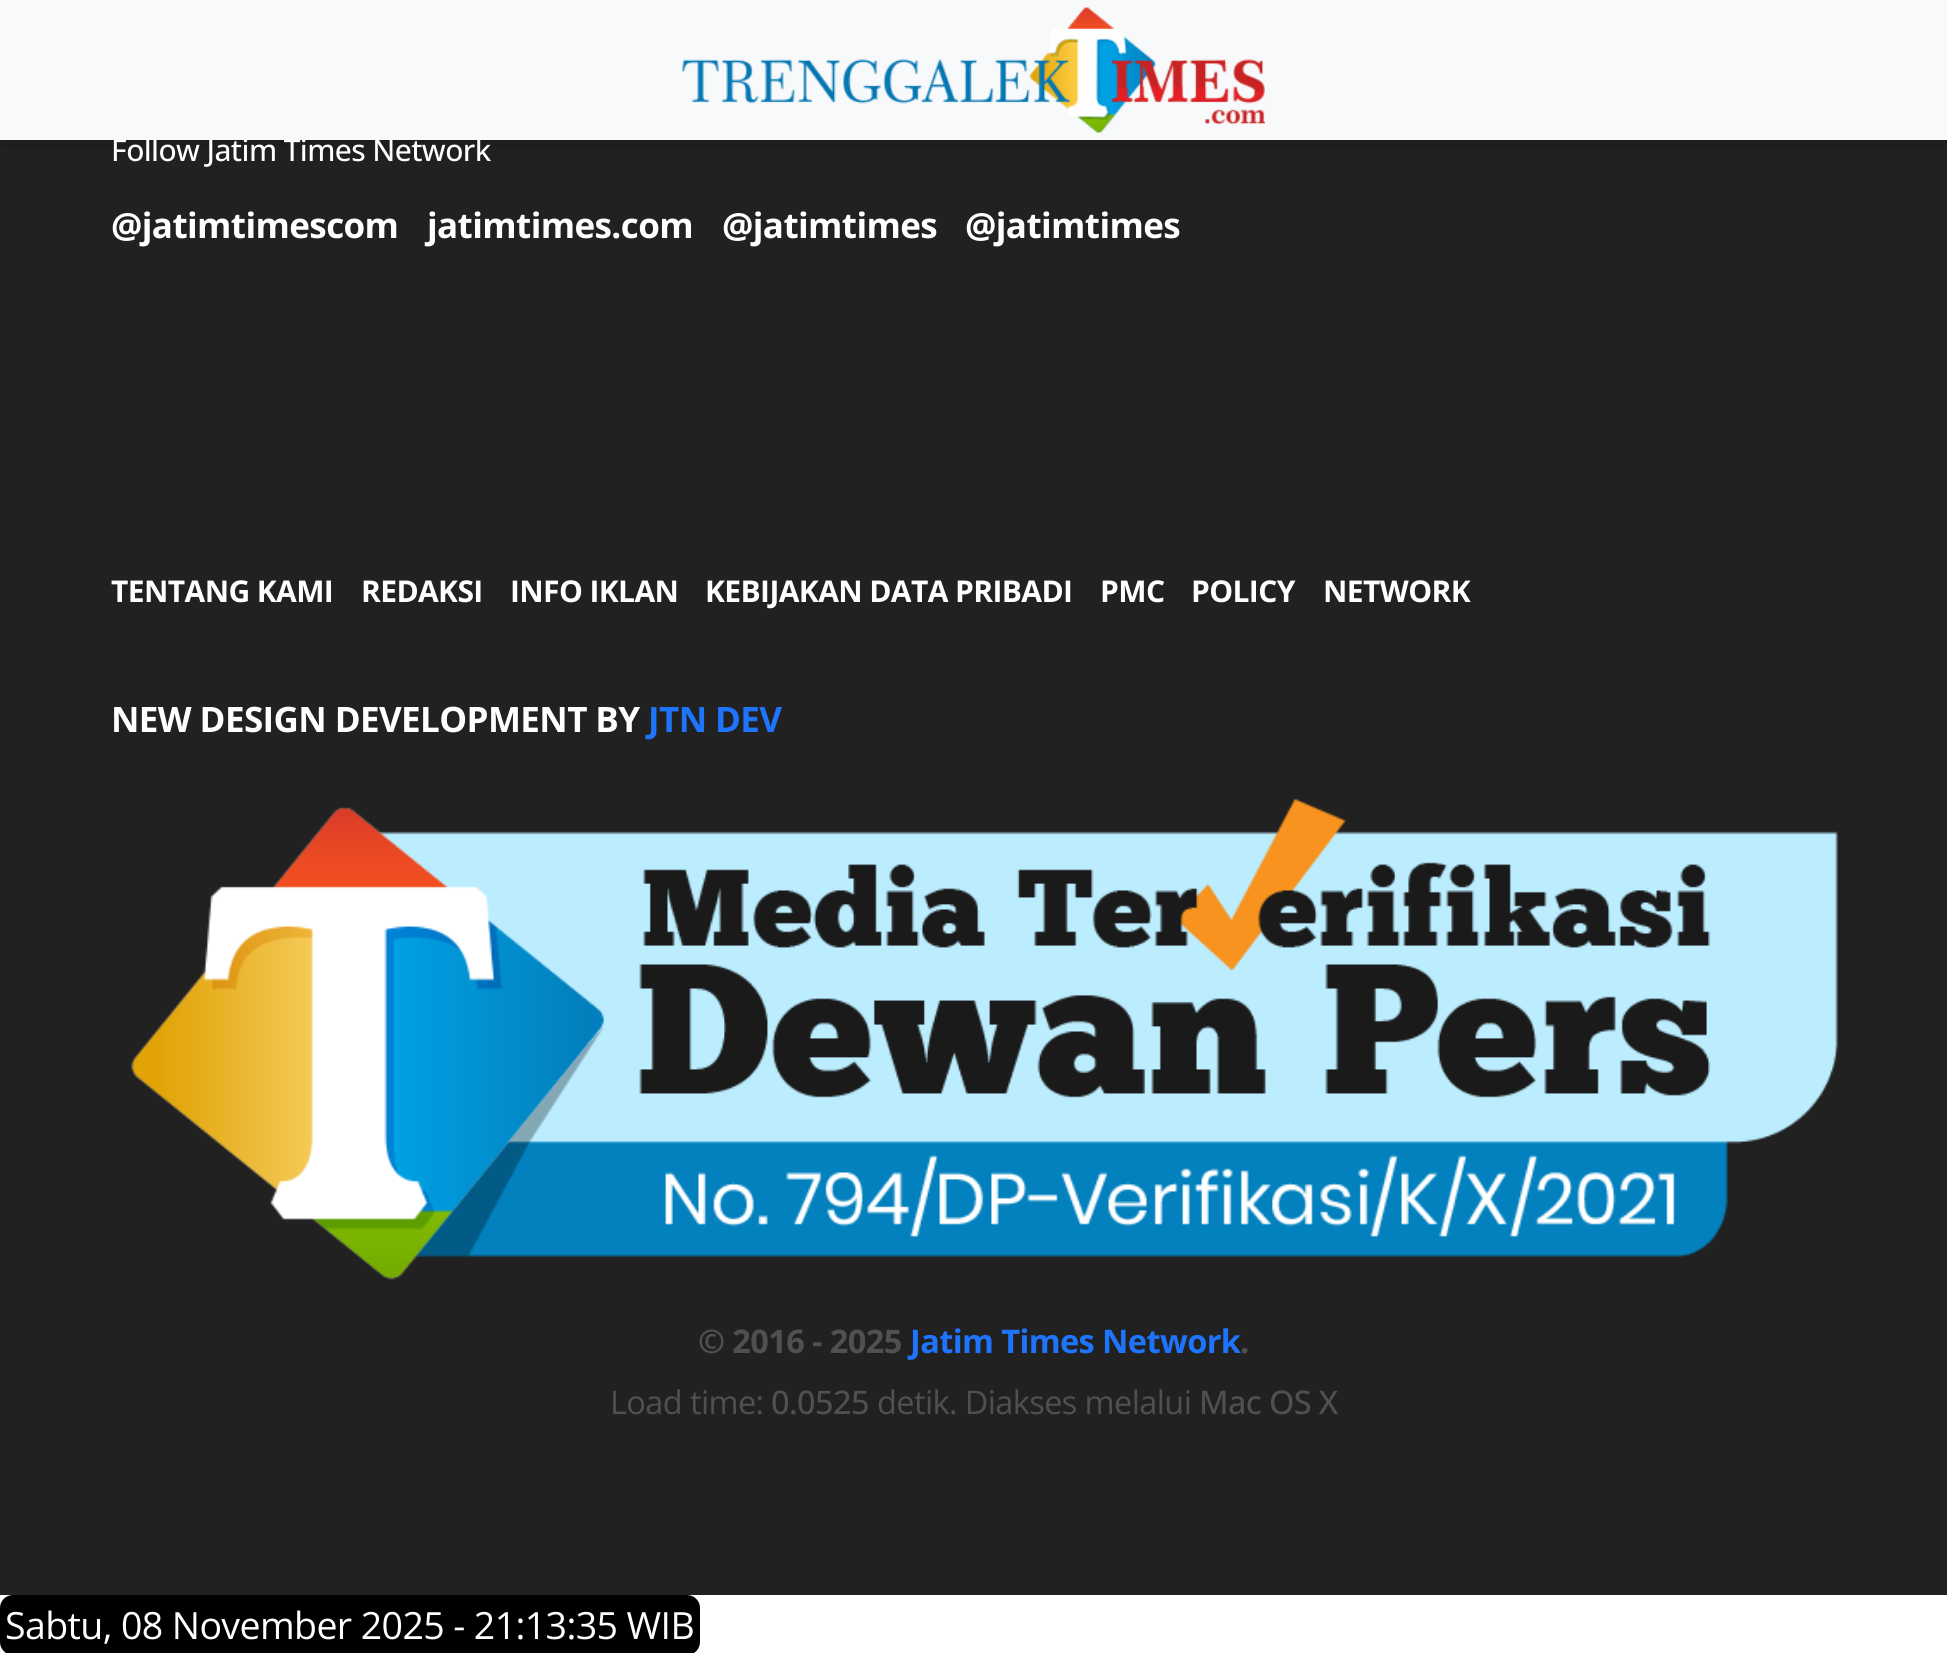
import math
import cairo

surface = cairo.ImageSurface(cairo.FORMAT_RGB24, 1947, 1653)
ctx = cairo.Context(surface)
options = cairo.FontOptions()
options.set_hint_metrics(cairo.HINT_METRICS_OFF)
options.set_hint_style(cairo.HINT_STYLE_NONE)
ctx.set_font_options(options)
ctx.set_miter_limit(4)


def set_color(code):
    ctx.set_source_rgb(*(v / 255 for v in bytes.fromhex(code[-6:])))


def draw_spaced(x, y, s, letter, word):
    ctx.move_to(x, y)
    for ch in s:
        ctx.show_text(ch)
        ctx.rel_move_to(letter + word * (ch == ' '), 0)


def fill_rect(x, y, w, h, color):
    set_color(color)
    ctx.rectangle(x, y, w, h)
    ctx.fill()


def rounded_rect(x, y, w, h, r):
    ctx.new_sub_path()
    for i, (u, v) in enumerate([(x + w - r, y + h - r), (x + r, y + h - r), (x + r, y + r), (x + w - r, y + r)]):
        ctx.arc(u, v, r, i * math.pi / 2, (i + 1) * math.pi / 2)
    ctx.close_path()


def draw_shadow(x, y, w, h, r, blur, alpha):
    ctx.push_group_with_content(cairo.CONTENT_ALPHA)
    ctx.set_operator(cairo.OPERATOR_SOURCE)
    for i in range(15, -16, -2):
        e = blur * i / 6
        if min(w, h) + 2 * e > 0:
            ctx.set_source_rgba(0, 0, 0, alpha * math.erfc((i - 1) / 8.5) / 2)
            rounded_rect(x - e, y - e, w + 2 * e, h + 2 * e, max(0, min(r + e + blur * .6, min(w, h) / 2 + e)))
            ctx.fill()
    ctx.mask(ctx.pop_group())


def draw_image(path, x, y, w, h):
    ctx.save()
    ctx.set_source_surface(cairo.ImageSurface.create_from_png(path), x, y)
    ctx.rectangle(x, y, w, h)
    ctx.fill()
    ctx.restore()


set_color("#ffffff")
ctx.paint()
fill_rect(0, 140, 1947, 1455, "#212121")
set_color("#000000")
draw_shadow(0, 3, 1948, 140, 0, 4, 0.08)
draw_shadow(0, 8, 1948, 140, 0, 7.5, 0.1)
ctx.select_font_face("Open Sans Medium")
ctx.set_font_size(30)
set_color("#ffffff")
draw_spaced(111, 161, "Follow Jatim Times Network", -0.6, 0)
fill_rect(0, 0, 1947, 140, "#f8f9fa")
draw_image("assets/img1.png", 682, 7, 583, 126)
ctx.select_font_face("Open Sans", cairo.FONT_SLANT_NORMAL, cairo.FONT_WEIGHT_BOLD)
ctx.set_font_size(35)
set_color("#ffffff")
draw_spaced(111, 238, "@jatimtimescom", -0.6, 0)
draw_spaced(427, 238, "jatimtimes.com", -0.6, 0)
draw_spaced(722, 238, "@jatimtimes", -0.6, 0)
draw_spaced(965, 238, "@jatimtimes", -0.6, 0)
ctx.set_font_size(30)
draw_spaced(111, 602, "TENTANG KAMI", -0.6, 0)
draw_spaced(361, 602, "REDAKSI", -0.6, 0)
draw_spaced(510, 602, "INFO IKLAN", -0.6, 0)
draw_spaced(705, 602, "KEBIJAKAN DATA PRIBADI", -0.6, 0)
draw_spaced(1100, 602, "PMC", -0.6, 0)
draw_spaced(1191, 602, "POLICY", -0.6, 0)
draw_spaced(1323, 602, "NETWORK", -0.6, 0)
ctx.set_font_size(35)
draw_spaced(111, 732, "NEW DESIGN DEVELOPMENT BY", -0.6, 0)
set_color("#1e74fd")
draw_spaced(648, 732, "JTN DEV", -0.6, 0)
draw_image("assets/img2.png", 131, 799, 1707, 481)
ctx.set_font_size(32.5)
set_color("#4f5050")
draw_spaced(698, 1353, "© 2016 - 2025", -0.6, 0)
set_color("#1e74fd")
draw_spaced(910, 1353, "Jatim Times Network", -0.6, 0)
set_color("#4f5050")
draw_spaced(1240, 1353, ".", -0.6, 0)
ctx.select_font_face("Open Sans")
draw_spaced(610, 1414, "Load time:", -0.6, 0)
ctx.select_font_face("Open Sans Medium")
draw_spaced(771, 1414, "0.0525", -0.6, 0)
ctx.select_font_face("Open Sans")
draw_spaced(877, 1414, "detik. Diakses melalui", -0.6, 0)
ctx.select_font_face("Open Sans Medium")
draw_spaced(1199, 1414, "Mac OS X", -0.6, 0)
set_color("#000000")
rounded_rect(0, 1595, 700, 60, 13)
ctx.fill()
ctx.select_font_face("Open Sans")
ctx.set_font_size(37.5)
set_color("#ffffff")
draw_spaced(5, 1639, "Sabtu, 08 November 2025 - 21:13:35 WIB", -0.6, 0)
surface.write_to_png("output.png")
